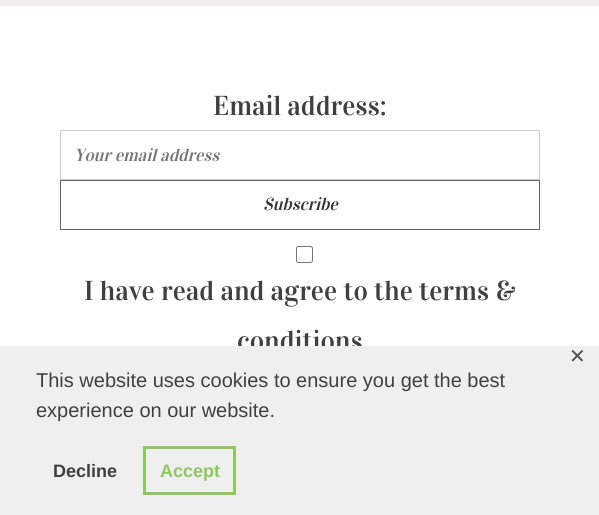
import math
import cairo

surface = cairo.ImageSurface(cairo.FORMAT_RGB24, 599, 515)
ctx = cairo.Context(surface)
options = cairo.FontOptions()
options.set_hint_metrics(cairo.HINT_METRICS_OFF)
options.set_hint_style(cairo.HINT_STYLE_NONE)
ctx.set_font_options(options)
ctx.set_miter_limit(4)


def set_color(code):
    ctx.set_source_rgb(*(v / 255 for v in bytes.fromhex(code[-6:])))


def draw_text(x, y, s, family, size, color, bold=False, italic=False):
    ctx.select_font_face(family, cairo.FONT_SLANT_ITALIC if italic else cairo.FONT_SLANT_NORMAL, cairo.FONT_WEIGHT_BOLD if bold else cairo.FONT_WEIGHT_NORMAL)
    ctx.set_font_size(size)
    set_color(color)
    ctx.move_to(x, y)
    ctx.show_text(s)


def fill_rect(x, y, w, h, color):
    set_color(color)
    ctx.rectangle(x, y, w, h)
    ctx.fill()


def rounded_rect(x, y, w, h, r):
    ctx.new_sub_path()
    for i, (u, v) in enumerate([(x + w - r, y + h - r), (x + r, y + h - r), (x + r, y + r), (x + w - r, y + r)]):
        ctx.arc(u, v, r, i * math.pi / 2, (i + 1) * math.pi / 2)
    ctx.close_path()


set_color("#efeeea")
ctx.paint()
fill_rect(0, 6, 599, 340, "#ffffff")
draw_text(213, 115, "Email address:", "Vidaloka", 27.5, "#404040")
ctx.rectangle(60.5, 130.5, 479, 49)
set_color("#cccccc")
ctx.set_line_width(1)
ctx.stroke()
draw_text(74, 161, "Your email address", "Vidaloka", 17.5, "#757575", italic=True)
ctx.rectangle(60.5, 180.5, 479, 49)
set_color("#636363")
ctx.stroke()
draw_text(263, 210, "Subscribe", "Vidaloka", 17.5, "#333333", italic=True)
rounded_rect(296.5, 246.5, 16, 16, 2)
set_color("#767676")
ctx.stroke()
draw_text(84, 300, "I have read and agree to the terms &", "Vidaloka", 27.5, "#404040")
draw_text(237, 350, "conditions", "Vidaloka", 27.5, "#404040")
fill_rect(0, 346, 599, 169, "#efefef")
draw_text(569, 363, "✕", "DejaVu Sans", 20, "#525252")
draw_text(36, 387, "This website uses cookies to ensure you get the best", "Liberation Sans", 20, "#404040")
draw_text(36, 417, "experience on our website.", "Liberation Sans", 20, "#404040")
draw_text(53, 477, "Decline", "Liberation Sans", 18, "#404040", bold=True)
ctx.rectangle(144.5, 447.5, 90, 46)
set_color("#8ec760")
ctx.set_line_width(3)
ctx.stroke()
draw_text(160, 477, "Accept", "Liberation Sans", 18, "#8ec760", bold=True)
surface.write_to_png("output.png")
